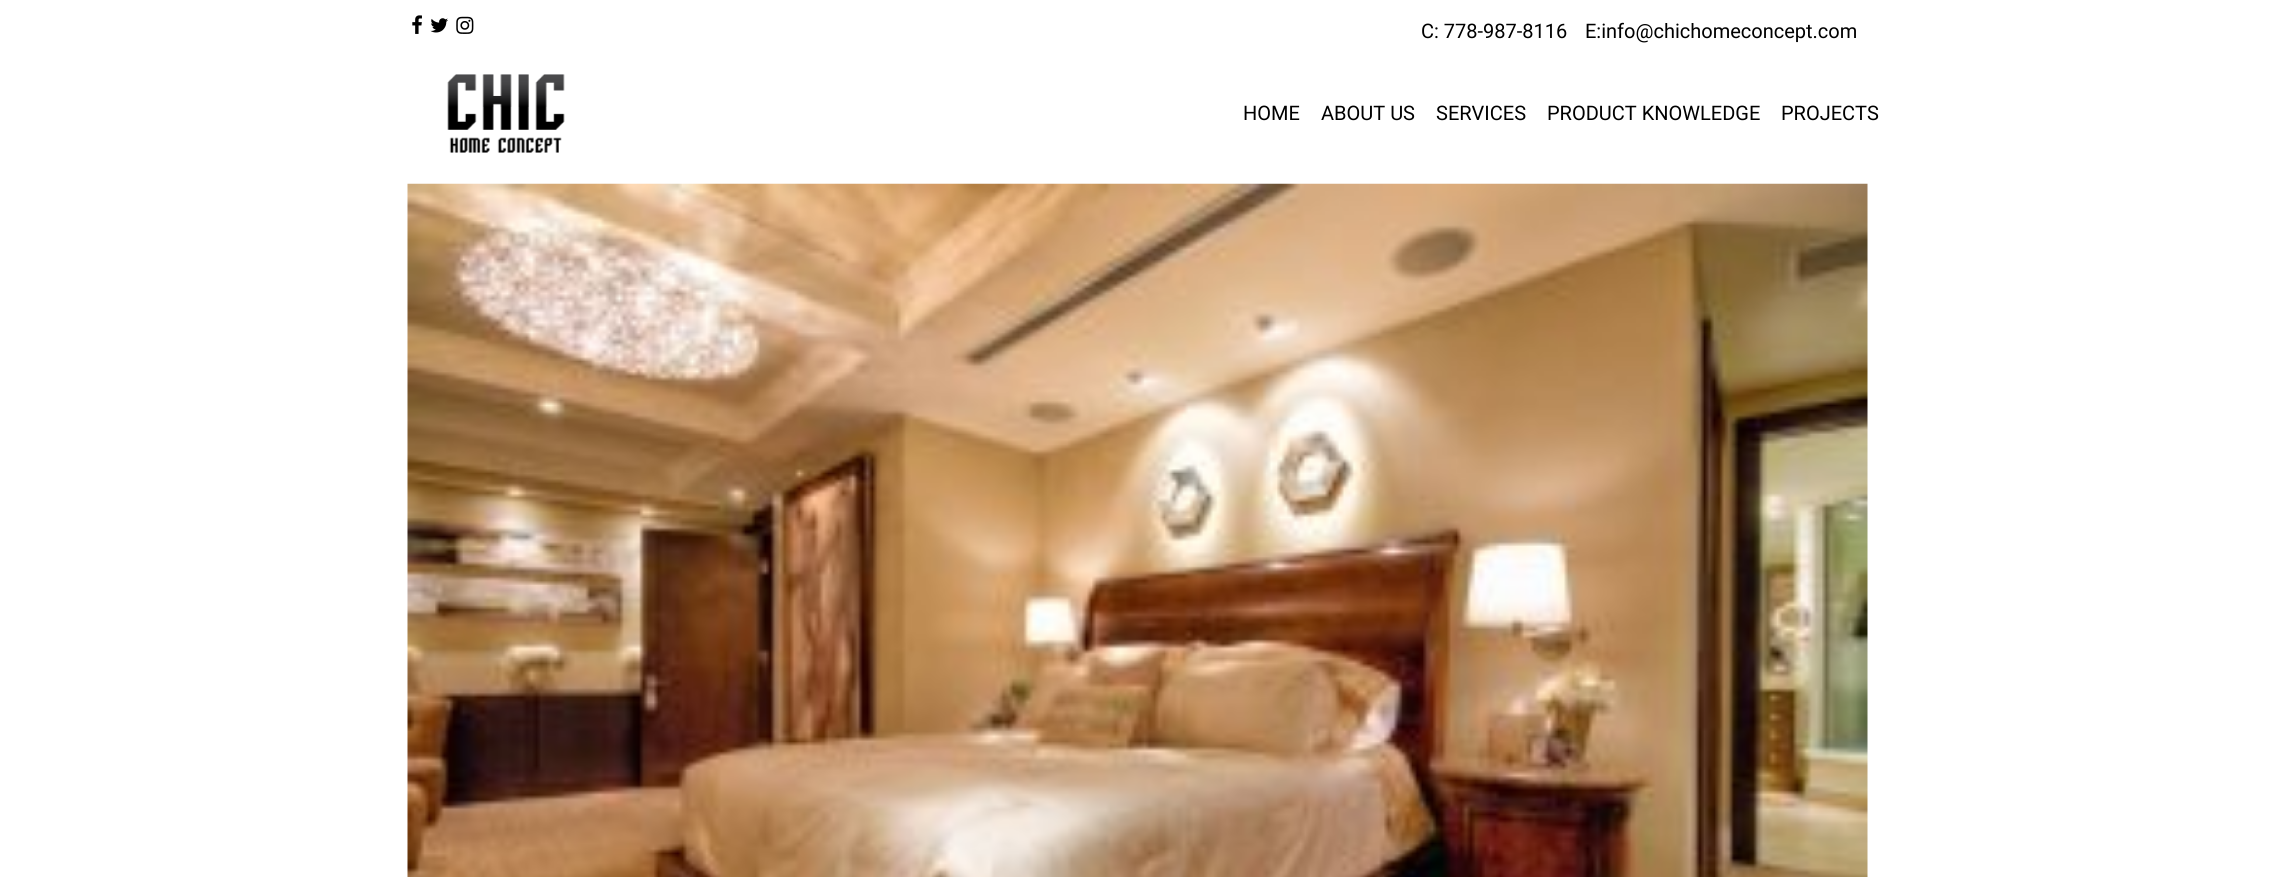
import math
import cairo

surface = cairo.ImageSurface(cairo.FORMAT_RGB24, 2273, 877)
ctx = cairo.Context(surface)
options = cairo.FontOptions()
options.set_hint_metrics(cairo.HINT_METRICS_OFF)
options.set_hint_style(cairo.HINT_STYLE_NONE)
ctx.set_font_options(options)
ctx.set_miter_limit(4)


def set_color(code):
    ctx.set_source_rgb(*(v / 255 for v in bytes.fromhex(code[-6:])))


def draw_text(x, y, s, family, size, color, bold=False, italic=False):
    ctx.select_font_face(family, cairo.FONT_SLANT_ITALIC if italic else cairo.FONT_SLANT_NORMAL, cairo.FONT_WEIGHT_BOLD if bold else cairo.FONT_WEIGHT_NORMAL)
    ctx.set_font_size(size)
    set_color(color)
    ctx.move_to(x, y)
    ctx.show_text(s)


def draw_image(path, x, y, w, h):
    ctx.save()
    ctx.set_source_surface(cairo.ImageSurface.create_from_png(path), x, y)
    ctx.rectangle(x, y, w, h)
    ctx.fill()
    ctx.restore()


set_color("#ffffff")
ctx.paint()
draw_image("assets/img1.png", 412, 15, 10, 19)
draw_image("assets/img2.png", 430, 18, 18, 15)
draw_image("assets/img3.png", 456, 16, 18, 18)
draw_text(1421, 38, "C: 778-987-8116", "Roboto", 20, "#000000")
draw_text(1585, 38, "E:info@chichomeconcept.com", "Roboto", 20, "#000000")
draw_image("assets/img4.png", 447, 74, 118, 79)
draw_text(1243, 120, "HOME", "Roboto", 20, "#000000")
draw_text(1321, 120, "ABOUT US", "Roboto", 20, "#000000")
draw_text(1436, 120, "SERVICES", "Roboto", 20, "#000000")
draw_text(1547, 120, "PRODUCT KNOWLEDGE", "Roboto", 20, "#000000")
draw_text(1781, 120, "PROJECTS", "Roboto", 20, "#000000")
draw_image("assets/img5.png", 407, 183, 1461, 694)
surface.write_to_png("output.png")
